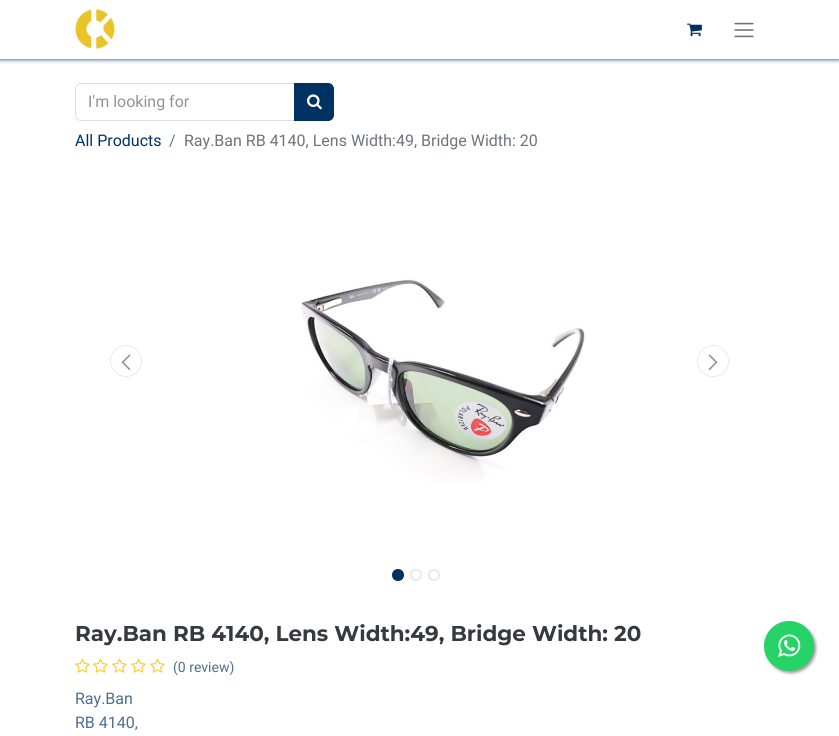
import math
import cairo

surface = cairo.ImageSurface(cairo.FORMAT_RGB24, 839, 736)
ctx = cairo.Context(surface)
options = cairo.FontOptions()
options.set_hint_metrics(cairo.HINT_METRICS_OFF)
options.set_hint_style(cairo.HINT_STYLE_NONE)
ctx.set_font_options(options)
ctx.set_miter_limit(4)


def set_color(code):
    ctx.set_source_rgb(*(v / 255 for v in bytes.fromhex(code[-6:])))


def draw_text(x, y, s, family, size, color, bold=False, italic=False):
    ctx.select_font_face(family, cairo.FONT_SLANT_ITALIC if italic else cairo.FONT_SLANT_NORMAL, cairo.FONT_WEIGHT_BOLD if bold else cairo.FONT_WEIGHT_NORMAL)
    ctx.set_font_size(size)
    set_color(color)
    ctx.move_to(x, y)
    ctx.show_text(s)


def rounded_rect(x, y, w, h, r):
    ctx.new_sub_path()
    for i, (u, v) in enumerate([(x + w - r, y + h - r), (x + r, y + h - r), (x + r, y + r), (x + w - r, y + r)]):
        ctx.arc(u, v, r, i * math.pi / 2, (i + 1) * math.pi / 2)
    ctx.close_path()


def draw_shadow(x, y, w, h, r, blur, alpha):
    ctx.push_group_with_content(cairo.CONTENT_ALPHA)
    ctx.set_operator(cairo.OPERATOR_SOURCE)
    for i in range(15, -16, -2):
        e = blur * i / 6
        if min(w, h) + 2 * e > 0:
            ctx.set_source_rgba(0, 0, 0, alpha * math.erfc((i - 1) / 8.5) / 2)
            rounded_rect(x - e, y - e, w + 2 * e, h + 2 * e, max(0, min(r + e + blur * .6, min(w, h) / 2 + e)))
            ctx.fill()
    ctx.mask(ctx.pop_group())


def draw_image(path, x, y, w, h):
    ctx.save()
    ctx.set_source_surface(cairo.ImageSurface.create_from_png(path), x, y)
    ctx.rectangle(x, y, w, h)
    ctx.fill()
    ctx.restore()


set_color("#ffffff")
ctx.paint()
ctx.save()
ctx.rectangle(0, 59, 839, 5)
ctx.clip()
set_color("#003163")
draw_shadow(0, 0, 839, 59, 0, 2.5, 1)
ctx.restore()
draw_image("assets/img1.png", 75, 9, 40, 40)
draw_image("assets/img2.png", 687, 23, 15, 14)
draw_image("assets/img3.png", 734, 22, 20, 16)
ctx.new_path()
ctx.move_to(81, 83.5)
ctx.line_to(294.5, 83.5)
ctx.line_to(294.5, 120.5)
ctx.line_to(81, 120.5)
ctx.curve_to(78, 120.5, 75.5, 118, 75.5, 115)
ctx.line_to(75.5, 89)
ctx.curve_to(75.5, 86, 78, 83.5, 81, 83.5)
ctx.close_path()
set_color("#dededf")
ctx.set_line_width(1)
ctx.stroke()
draw_text(88, 107, "I'm looking for", "Roboto", 16, "#909294")
set_color("#003163")
ctx.new_path()
ctx.move_to(294.5, 83.5)
ctx.line_to(328, 83.5)
ctx.curve_to(331, 83.5, 333.5, 86, 333.5, 89)
ctx.line_to(333.5, 115)
ctx.curve_to(333.5, 118, 331, 120.5, 328, 120.5)
ctx.line_to(294.5, 120.5)
ctx.close_path()
ctx.fill_preserve()
ctx.stroke()
draw_image("assets/img4.png", 307, 94, 15, 16)
draw_text(75, 146, "All Products", "Roboto", 16, "#003163")
draw_text(169, 146, "/", "Roboto", 16, "#6c757d")
draw_text(184, 146, "Ray.Ban RB 4140, Lens Width:49, Bridge Width: 20", "Roboto", 16, "#6c757d")
ctx.new_path()
ctx.arc(126, 361, 15.5, 0, 2 * math.pi)
set_color("#e7eaed")
ctx.stroke()
draw_image("assets/img5.png", 121, 354, 10, 17)
draw_image("assets/img6.png", 301, 279, 285, 204)
ctx.arc(713, 361, 15.5, 0, 2 * math.pi)
ctx.stroke()
draw_image("assets/img7.png", 708, 354, 10, 17)
set_color("#003163")
ctx.arc(398, 575, 5, 0, 2 * math.pi)
ctx.fill_preserve()
ctx.set_line_width(2)
ctx.stroke()
ctx.arc(416, 575, 5, 0, 2 * math.pi)
set_color("#e7eaed")
ctx.stroke()
ctx.arc(434, 575, 5, 0, 2 * math.pi)
ctx.stroke()
draw_text(75, 641, "Ray.Ban RB 4140, Lens Width:49, Bridge Width: 20", "Montserrat", 21.45, "#343a40", bold=True)
draw_image("assets/img8.png", 75, 658, 15, 15)
draw_image("assets/img8.png", 93, 658, 15, 15)
draw_image("assets/img8.png", 112, 658, 15, 15)
draw_image("assets/img8.png", 131, 658, 15, 15)
draw_image("assets/img8.png", 150, 658, 15, 15)
draw_text(173, 672, "(0 review)", "Roboto", 14, "#4d6f92")
draw_text(75, 704, "Ray.Ban", "Roboto", 16, "#4d6f92")
draw_text(75, 728, "RB 4140,", "Roboto", 16, "#4d6f92")
set_color("#999999")
draw_shadow(766, 623, 50, 50, 25, 1.5, 1)
set_color("#25d366")
ctx.arc(789, 646, 25, 0, 2 * math.pi)
ctx.fill()
draw_image("assets/img9.png", 778, 634, 23, 23)
surface.write_to_png("output.png")
